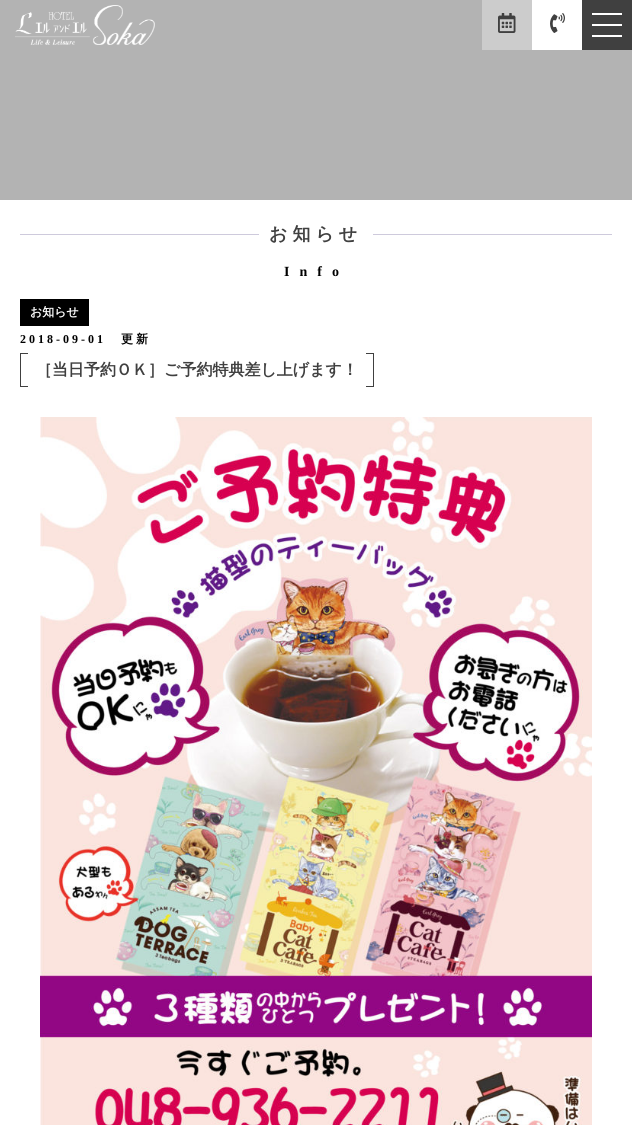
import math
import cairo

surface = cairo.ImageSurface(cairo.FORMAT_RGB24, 632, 1125)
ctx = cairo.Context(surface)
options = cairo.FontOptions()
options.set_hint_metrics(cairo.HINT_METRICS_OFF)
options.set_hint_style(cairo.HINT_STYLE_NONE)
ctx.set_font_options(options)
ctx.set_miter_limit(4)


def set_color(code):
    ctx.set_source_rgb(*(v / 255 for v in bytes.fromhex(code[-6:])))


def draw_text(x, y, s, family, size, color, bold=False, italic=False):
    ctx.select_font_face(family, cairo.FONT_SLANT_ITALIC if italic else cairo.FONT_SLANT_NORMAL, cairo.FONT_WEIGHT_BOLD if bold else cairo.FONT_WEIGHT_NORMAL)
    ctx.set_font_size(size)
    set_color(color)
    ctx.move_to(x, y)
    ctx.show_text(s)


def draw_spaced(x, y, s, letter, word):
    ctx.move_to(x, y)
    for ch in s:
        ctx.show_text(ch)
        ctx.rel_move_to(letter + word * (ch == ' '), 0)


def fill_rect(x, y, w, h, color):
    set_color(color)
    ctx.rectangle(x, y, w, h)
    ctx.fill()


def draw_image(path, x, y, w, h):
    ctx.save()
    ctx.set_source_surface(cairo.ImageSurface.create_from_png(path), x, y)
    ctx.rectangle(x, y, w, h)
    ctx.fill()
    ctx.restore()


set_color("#ffffff")
ctx.paint()
fill_rect(0, 0, 632, 200, "#b3b3b3")
draw_image("assets/img1.png", 15, 5, 140, 40)
fill_rect(482, 0, 50, 50, "#cccccc")
draw_image("assets/img2.png", 498, 13, 18, 20)
fill_rect(532, 0, 50, 50, "#ffffff")
draw_image("assets/img3.png", 550, 13, 15, 20)
fill_rect(582, 0, 50, 50, "#404040")
fill_rect(592, 13, 30, 2, "#ffffff")
fill_rect(592, 24, 30, 2, "#ffffff")
fill_rect(592, 35, 30, 2, "#ffffff")
fill_rect(20, 234, 592, 1, "#cecadc")
fill_rect(259, 234, 114, 1, "#ffffff")
ctx.select_font_face("WenQuanYi Zen Hei", cairo.FONT_SLANT_NORMAL, cairo.FONT_WEIGHT_BOLD)
ctx.set_font_size(18)
set_color("#404040")
draw_spaced(269, 240, "お知らせ", 5, 0)
ctx.select_font_face("Liberation Serif", cairo.FONT_SLANT_NORMAL, cairo.FONT_WEIGHT_BOLD)
ctx.set_font_size(14)
set_color("#000000")
draw_spaced(284, 276, "Info", 10, 0)
fill_rect(20, 299, 69, 27, "#000000")
draw_text(30, 316, "お知らせ", "WenQuanYi Zen Hei", 12, "#ffffff", bold=True)
ctx.select_font_face("Liberation Serif", cairo.FONT_SLANT_NORMAL, cairo.FONT_WEIGHT_BOLD)
set_color("#000000")
draw_spaced(20, 343, "2018-09-01", 3, 0)
ctx.select_font_face("WenQuanYi Zen Hei", cairo.FONT_SLANT_NORMAL, cairo.FONT_WEIGHT_BOLD)
draw_spaced(121, 343, "更新", 3, 0)
fill_rect(20, 353, 8, 1, "#404040")
fill_rect(20, 386, 8, 1, "#404040")
fill_rect(20, 353, 1, 34, "#404040")
draw_text(36, 375, "［当日予約ＯＫ］ご予約特典差し上げます！", "WenQuanYi Zen Hei", 16, "#404040", bold=True)
fill_rect(366, 353, 8, 1, "#404040")
fill_rect(373, 353, 1, 34, "#404040")
fill_rect(366, 386, 8, 1, "#404040")
draw_image("assets/img4.png", 40, 417, 552, 708)
surface.write_to_png("output.png")
